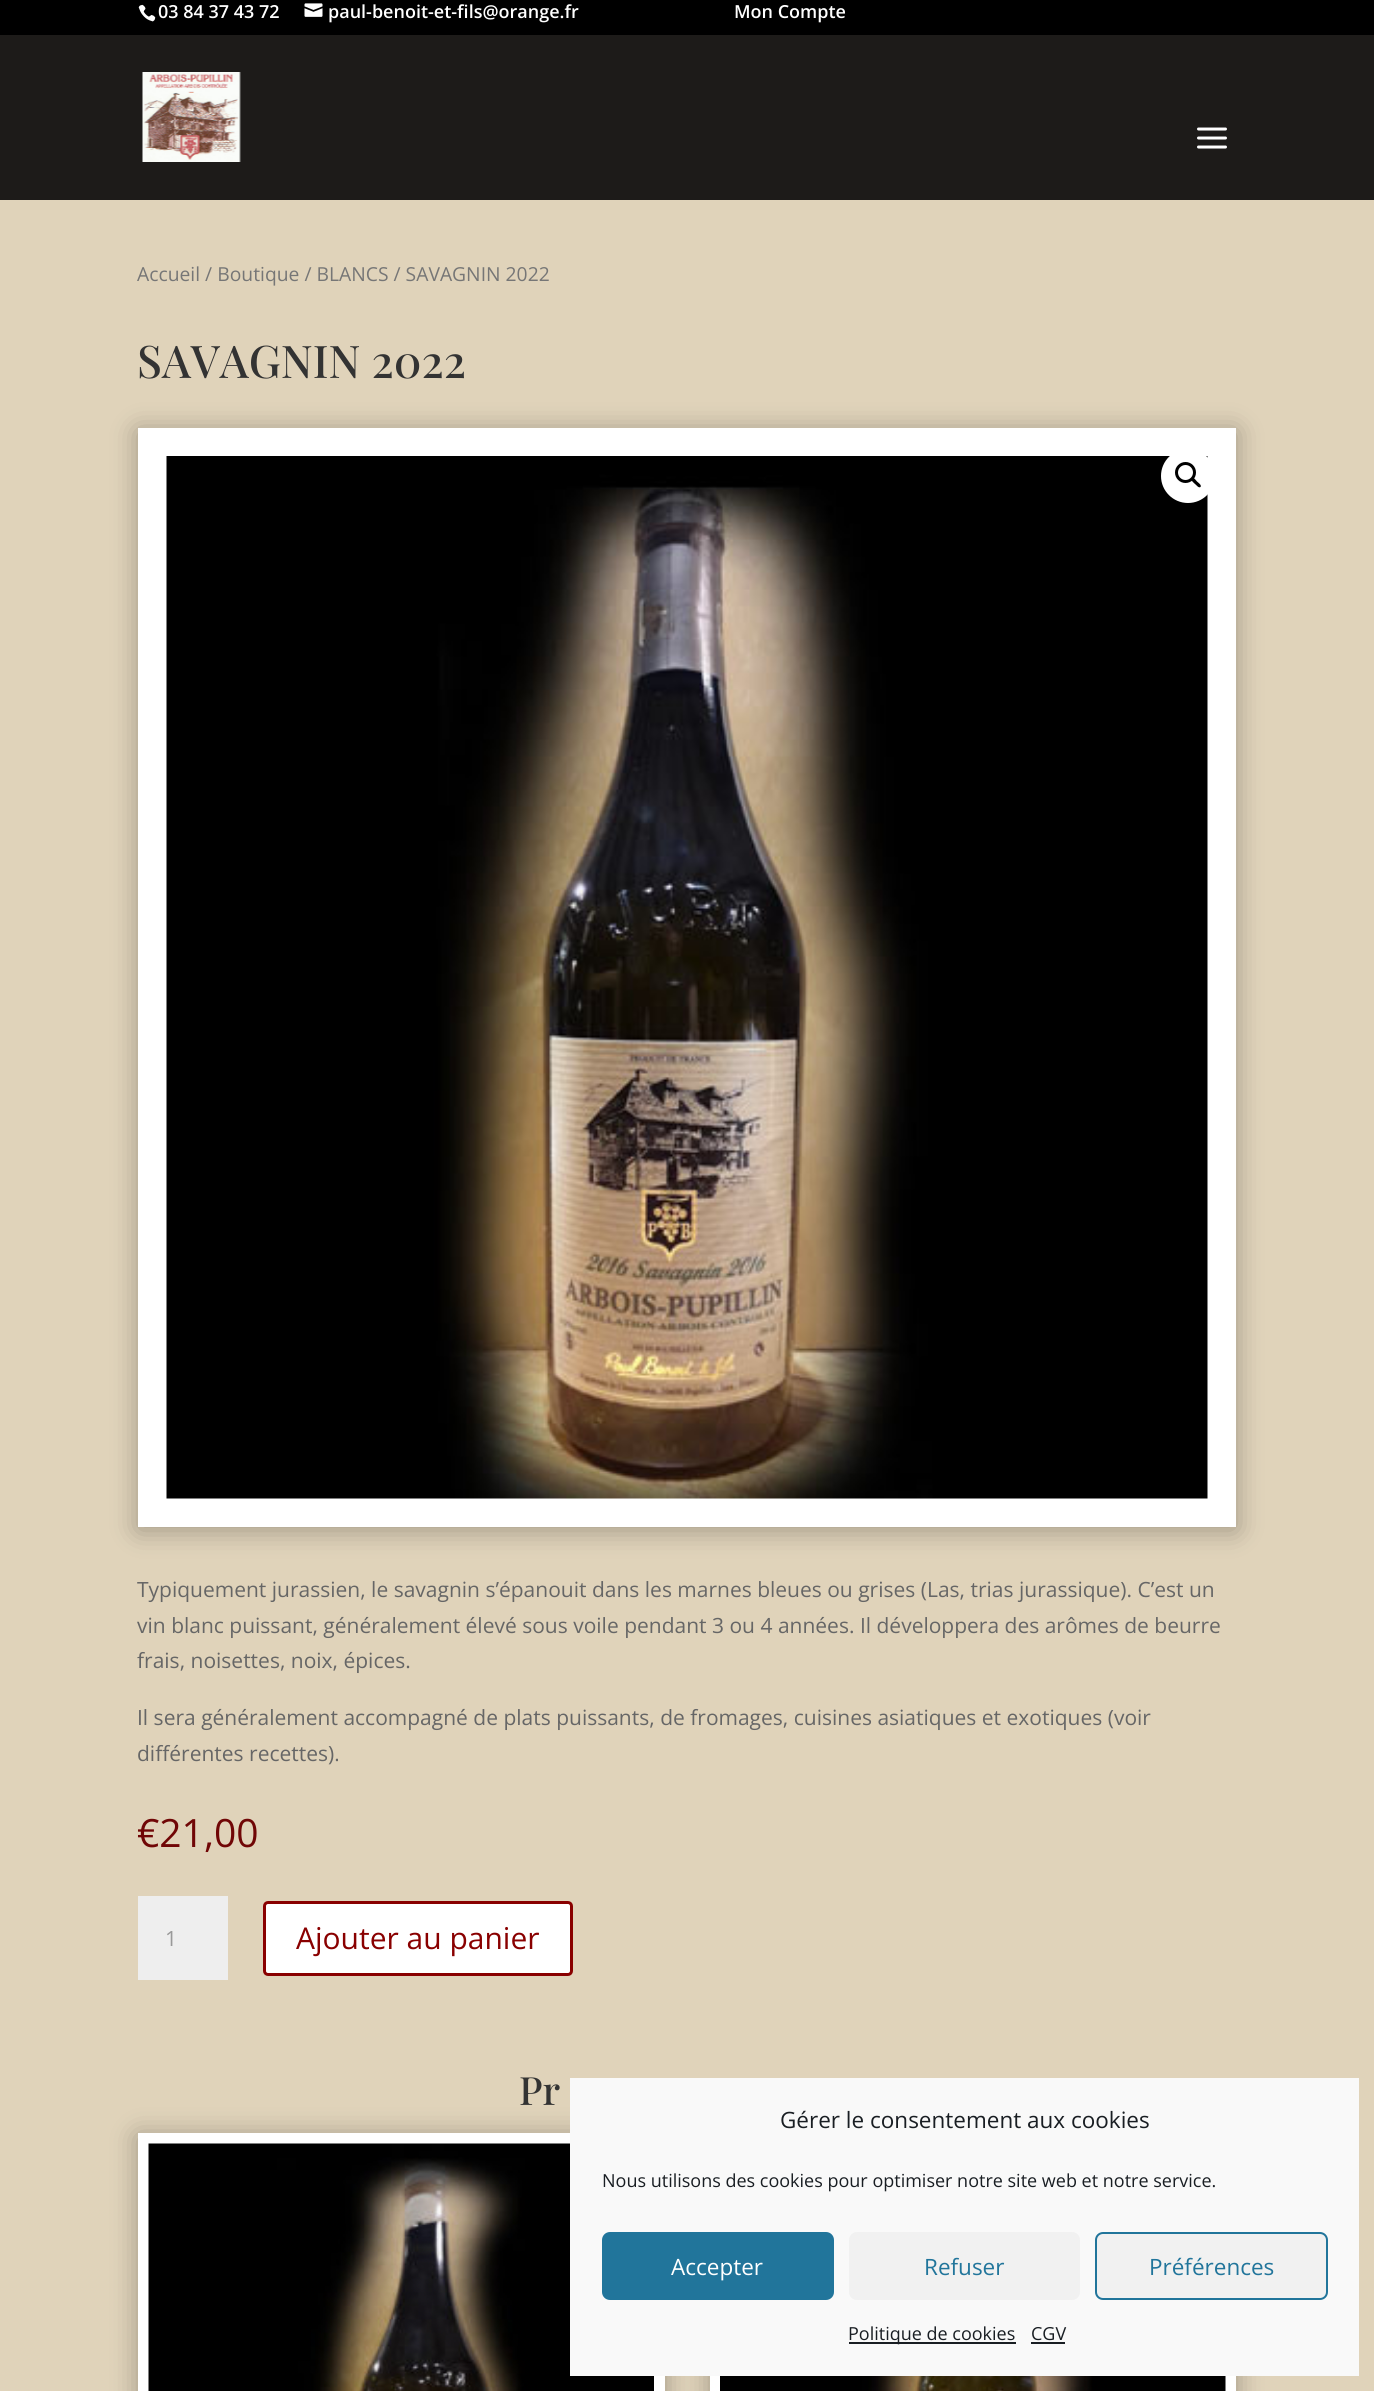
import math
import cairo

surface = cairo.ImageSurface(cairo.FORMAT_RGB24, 1374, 2391)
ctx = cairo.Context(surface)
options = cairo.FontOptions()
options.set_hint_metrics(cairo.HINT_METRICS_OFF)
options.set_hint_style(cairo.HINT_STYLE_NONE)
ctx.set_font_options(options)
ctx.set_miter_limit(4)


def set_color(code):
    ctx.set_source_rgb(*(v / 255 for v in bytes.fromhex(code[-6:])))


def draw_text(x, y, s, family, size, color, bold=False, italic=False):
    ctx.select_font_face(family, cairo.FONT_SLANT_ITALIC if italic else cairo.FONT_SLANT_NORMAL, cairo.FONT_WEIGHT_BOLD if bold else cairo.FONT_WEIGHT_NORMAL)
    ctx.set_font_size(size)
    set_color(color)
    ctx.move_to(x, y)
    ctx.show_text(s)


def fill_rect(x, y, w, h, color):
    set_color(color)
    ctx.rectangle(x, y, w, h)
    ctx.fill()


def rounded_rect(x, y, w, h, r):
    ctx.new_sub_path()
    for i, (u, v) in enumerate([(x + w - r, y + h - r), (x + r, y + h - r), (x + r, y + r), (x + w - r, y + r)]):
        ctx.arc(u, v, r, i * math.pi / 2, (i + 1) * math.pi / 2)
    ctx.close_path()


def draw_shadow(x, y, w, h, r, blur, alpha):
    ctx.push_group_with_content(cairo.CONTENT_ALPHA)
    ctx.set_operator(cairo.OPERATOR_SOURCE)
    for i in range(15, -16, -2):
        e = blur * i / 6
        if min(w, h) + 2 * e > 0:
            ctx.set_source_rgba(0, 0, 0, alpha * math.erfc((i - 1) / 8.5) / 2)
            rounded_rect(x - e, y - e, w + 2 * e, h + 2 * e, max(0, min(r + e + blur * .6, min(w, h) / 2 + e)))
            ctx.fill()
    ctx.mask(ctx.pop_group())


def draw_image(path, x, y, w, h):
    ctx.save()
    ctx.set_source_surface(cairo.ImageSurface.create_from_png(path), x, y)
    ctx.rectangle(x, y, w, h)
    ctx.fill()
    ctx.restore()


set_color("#e0d3ba")
ctx.paint()
fill_rect(0, 0, 1374, 35, "#000000")
draw_image("assets/img1.png", 138, 4, 18, 18)
draw_text(158, 18, "03 84 37 43 72", "Open Sans SemiBold", 18, "#ffffff")
draw_image("assets/img2.png", 304, 3, 19, 14)
draw_text(328, 18, "paul-benoit-et-fils@orange.fr", "Open Sans SemiBold", 18, "#ffffff")
draw_text(734, 18, "Mon Compte", "Open Sans SemiBold", 18, "#ffffff")
fill_rect(0, 35, 1374, 165, "#1d1b19")
draw_image("assets/img3.png", 142, 72, 99, 90)
draw_image("assets/img4.png", 1197, 127, 30, 22)
draw_text(137, 281, "Accueil / Boutique / BLANCS / SAVAGNIN 2022", "Open Sans", 19.3, "#767676")
draw_text(137, 378, "SAVAGNIN 2022", "Playfair Display Medium", 45, "#333333")
set_color("#000000")
draw_shadow(138, 431, 1098, 1099, 0, 13.5, 0.3)
ctx.rectangle(152.5, 442.5, 1069, 1070)
set_color("#ffffff")
ctx.set_line_width(29)
ctx.stroke()
draw_image("assets/img5.png", 166, 456, 1042, 1043)
ctx.arc(1188, 476, 27, 0, 2 * math.pi)
ctx.fill()
ctx.arc(1185.5, 472.5, 9, 0, 2 * math.pi)
set_color("#000000")
ctx.set_line_width(3)
ctx.stroke()
ctx.new_path()
ctx.move_to(1192, 478.5)
ctx.curve_to(1193.5, 476.5, 1196, 480.5, 1197, 481.5)
ctx.curve_to(1198, 482.5, 1202, 485, 1200.5, 487)
ctx.curve_to(1198.5, 488.5, 1196, 484.5, 1195, 484)
ctx.curve_to(1194, 483, 1190, 480, 1192, 478.5)
ctx.close_path()
ctx.fill()
draw_text(137, 1597, "Typiquement jurassien, le savagnin s’épanouit dans les marnes bleues ou grises (Las, trias jurassique). C’est un", "Open Sans", 21, "#666666")
draw_text(137, 1633, "vin blanc puissant, généralement élevé sous voile pendant 3 ou 4 années. Il développera des arômes de beurre", "Open Sans", 21, "#666666")
draw_text(137, 1668, "frais, noisettes, noix, épices.", "Open Sans", 21, "#666666")
draw_text(137, 1725, "Il sera généralement accompagné de plats puissants, de fromages, cuisines asiatiques et exotiques (voir", "Open Sans", 21, "#666666")
draw_text(137, 1761, "différentes recettes).", "Open Sans", 21, "#666666")
draw_text(137, 1847, "€21,00", "Open Sans", 39, "#700606")
fill_rect(138, 1896, 90, 84, "#eeeeee")
draw_text(165, 1946, "1", "Open Sans", 21, "#999999")
set_color("#ffffff")
rounded_rect(264.5, 1902.5, 307, 72, 3.5)
ctx.fill_preserve()
set_color("#890000")
ctx.stroke()
draw_text(296, 1949, "Ajouter au panier", "Open Sans", 30, "#890000")
draw_text(519, 2105, "Pr", "Playfair Display Medium", 39, "#333333")
set_color("#000000")
draw_shadow(138, 2136, 527, 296, 0, 13.5, 0.3)
ctx.rectangle(143.5, 2138.5, 516, 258)
set_color("#ffffff")
ctx.set_line_width(11)
ctx.stroke()
draw_image("assets/img6.png", 148, 2143, 506, 248)
set_color("#000000")
draw_shadow(710, 2136, 526, 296, 0, 13.5, 0.3)
ctx.rectangle(715.5, 2138.5, 515, 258)
set_color("#ffffff")
ctx.stroke()
draw_image("assets/img7.png", 720, 2376, 506, 15)
fill_rect(570, 2078, 789, 298, "#f9f9f9")
draw_text(780, 2128, "Gérer le consentement aux cookies", "Open Sans", 22.5, "#191e23")
draw_text(602, 2187, "Nous utilisons des cookies pour optimiser notre site web et notre service.", "Open Sans", 18, "#191e23")
set_color("#21759b")
rounded_rect(603, 2233, 230, 66, 7)
ctx.fill_preserve()
ctx.set_line_width(2)
ctx.stroke()
draw_text(671, 2275, "Accepter", "Open Sans", 22.5, "#ffffff")
set_color("#f1f1f1")
rounded_rect(849, 2232, 231, 68, 8)
ctx.fill()
draw_text(924, 2275, "Refuser", "Open Sans", 22.5, "#21759b")
set_color("#f1f1f1")
rounded_rect(1096, 2233, 231, 66, 7)
ctx.fill_preserve()
set_color("#21759b")
ctx.stroke()
draw_text(1149, 2275, "Préférences", "Open Sans", 22.5, "#21759b")
fill_rect(849, 2342, 167, 2, "#191e23")
draw_text(848, 2340, "Politique de cookies", "Open Sans", 18, "#191e23")
draw_text(1031, 2340, "CGV", "Open Sans", 18, "#191e23")
fill_rect(1031, 2342, 34, 2, "#191e23")
surface.write_to_png("output.png")
